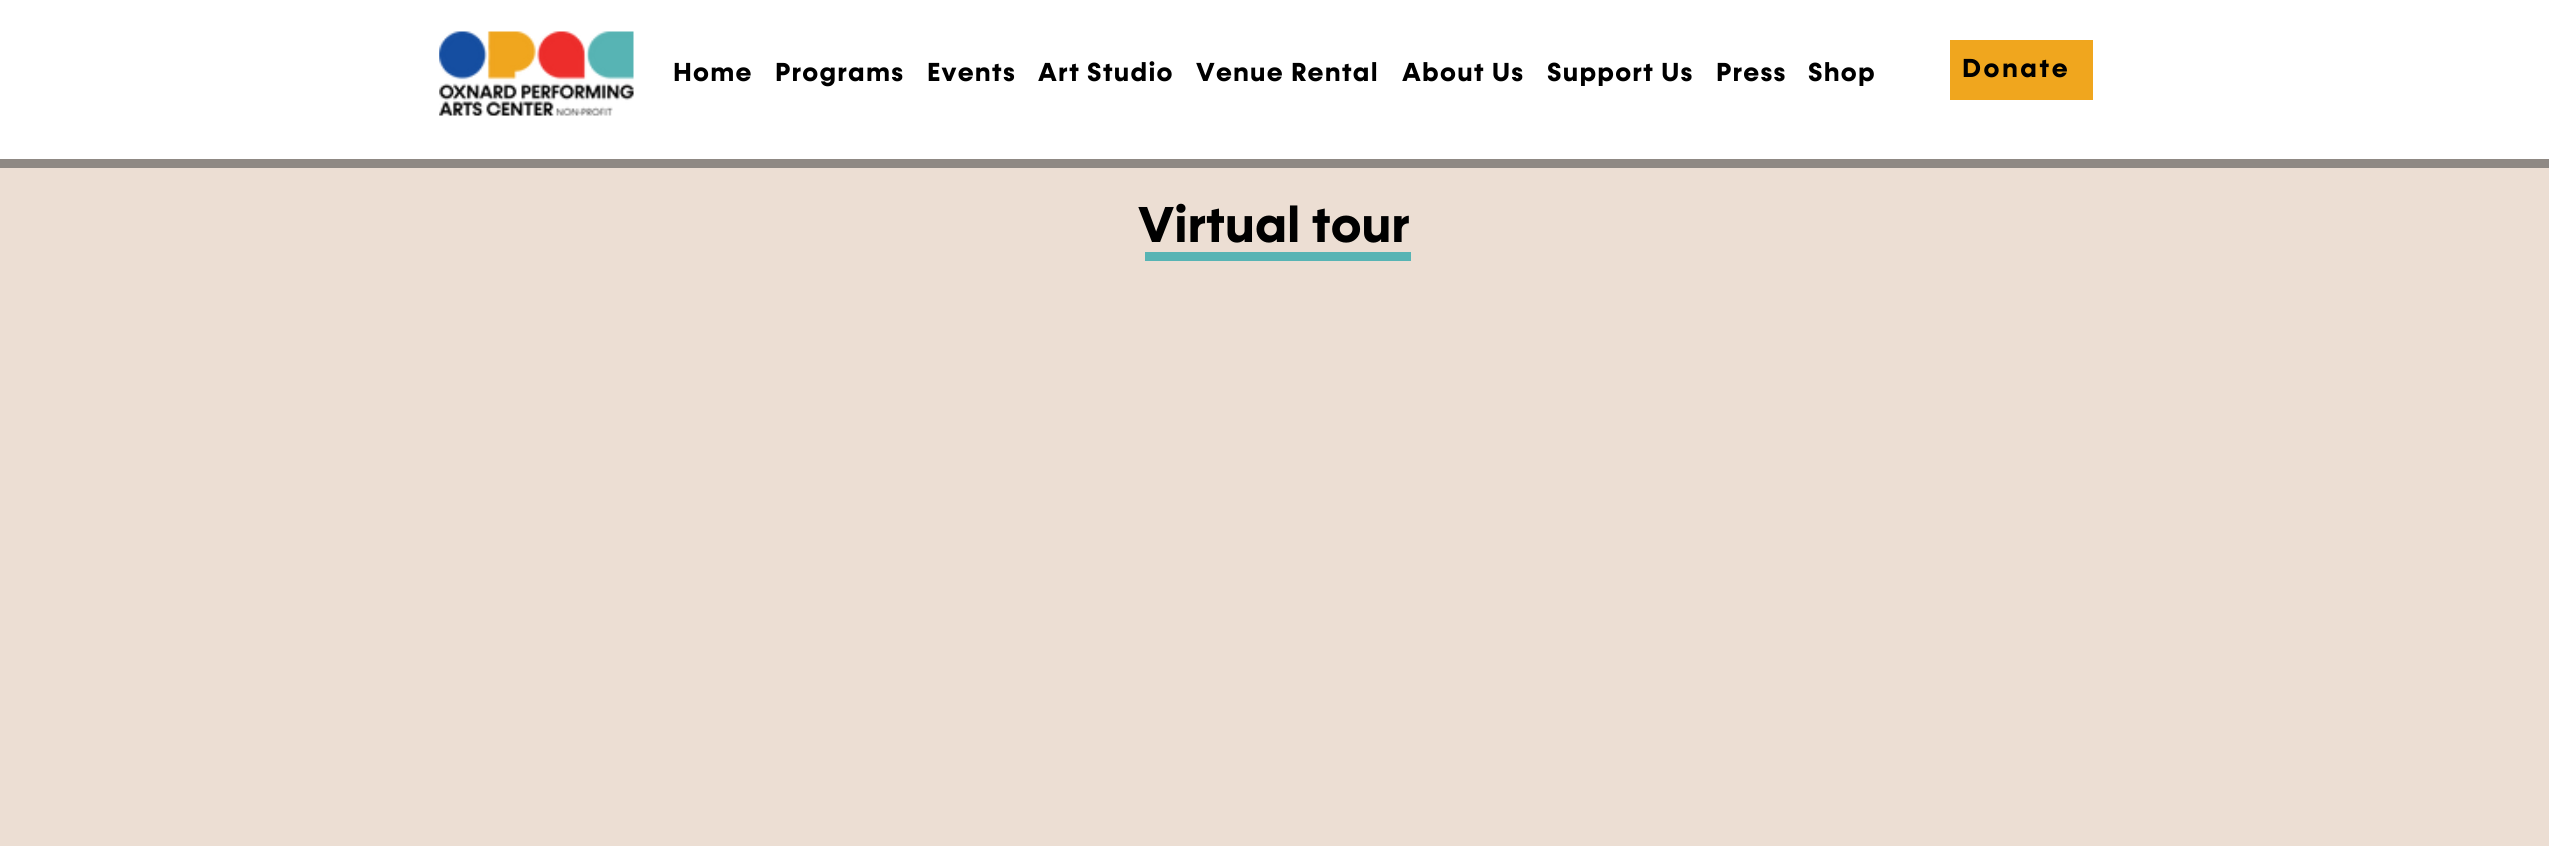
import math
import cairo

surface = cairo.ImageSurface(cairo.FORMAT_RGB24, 2549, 846)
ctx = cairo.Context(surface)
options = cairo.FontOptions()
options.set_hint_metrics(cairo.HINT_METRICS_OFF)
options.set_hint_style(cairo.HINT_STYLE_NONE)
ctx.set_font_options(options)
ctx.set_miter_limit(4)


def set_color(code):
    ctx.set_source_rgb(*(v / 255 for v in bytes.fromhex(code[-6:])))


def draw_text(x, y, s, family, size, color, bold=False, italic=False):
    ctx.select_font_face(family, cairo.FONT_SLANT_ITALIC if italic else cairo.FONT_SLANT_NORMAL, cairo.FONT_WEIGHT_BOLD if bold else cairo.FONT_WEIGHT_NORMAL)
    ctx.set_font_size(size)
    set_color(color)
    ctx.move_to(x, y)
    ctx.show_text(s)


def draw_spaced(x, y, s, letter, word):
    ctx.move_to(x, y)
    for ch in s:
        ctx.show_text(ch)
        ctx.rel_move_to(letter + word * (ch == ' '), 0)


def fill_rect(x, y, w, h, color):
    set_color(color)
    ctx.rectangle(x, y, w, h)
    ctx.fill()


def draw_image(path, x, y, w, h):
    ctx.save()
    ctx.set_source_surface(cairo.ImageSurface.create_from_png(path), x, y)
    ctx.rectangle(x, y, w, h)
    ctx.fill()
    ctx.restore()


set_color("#ecded3")
ctx.paint()
fill_rect(0, 0, 2549, 159, "#ffffff")
fill_rect(0, 159, 2549, 9, "#8f8984")
draw_image("assets/img1.png", 439, 31, 195, 85)
ctx.select_font_face("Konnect", cairo.FONT_SLANT_NORMAL, cairo.FONT_WEIGHT_BOLD)
ctx.set_font_size(26.25)
set_color("#000000")
draw_spaced(673, 81, "Home", 1.25, 0)
draw_spaced(775, 81, "Programs", 1.25, 0)
draw_spaced(927, 81, "Events", 1.25, 0)
draw_spaced(1038, 81, "Art Studio", 1.25, 0)
draw_spaced(1196, 81, "Venue Rental", 1.25, 0)
draw_spaced(1402, 81, "About Us", 1.25, 0)
draw_spaced(1547, 81, "Support Us", 1.25, 0)
draw_spaced(1716, 81, "Press", 1.25, 0)
draw_spaced(1808, 81, "Shop", 1.25, 0)
fill_rect(1950, 40, 143, 60, "#f0a61e")
set_color("#000000")
draw_spaced(1962, 77, "Donate", 2.5, 0)
draw_text(1138, 242, "Virtual tour", "Konnect", 50.75, "#000000", bold=True)
fill_rect(1145, 252, 266, 9, "#57b4b4")
surface.write_to_png("output.png")
